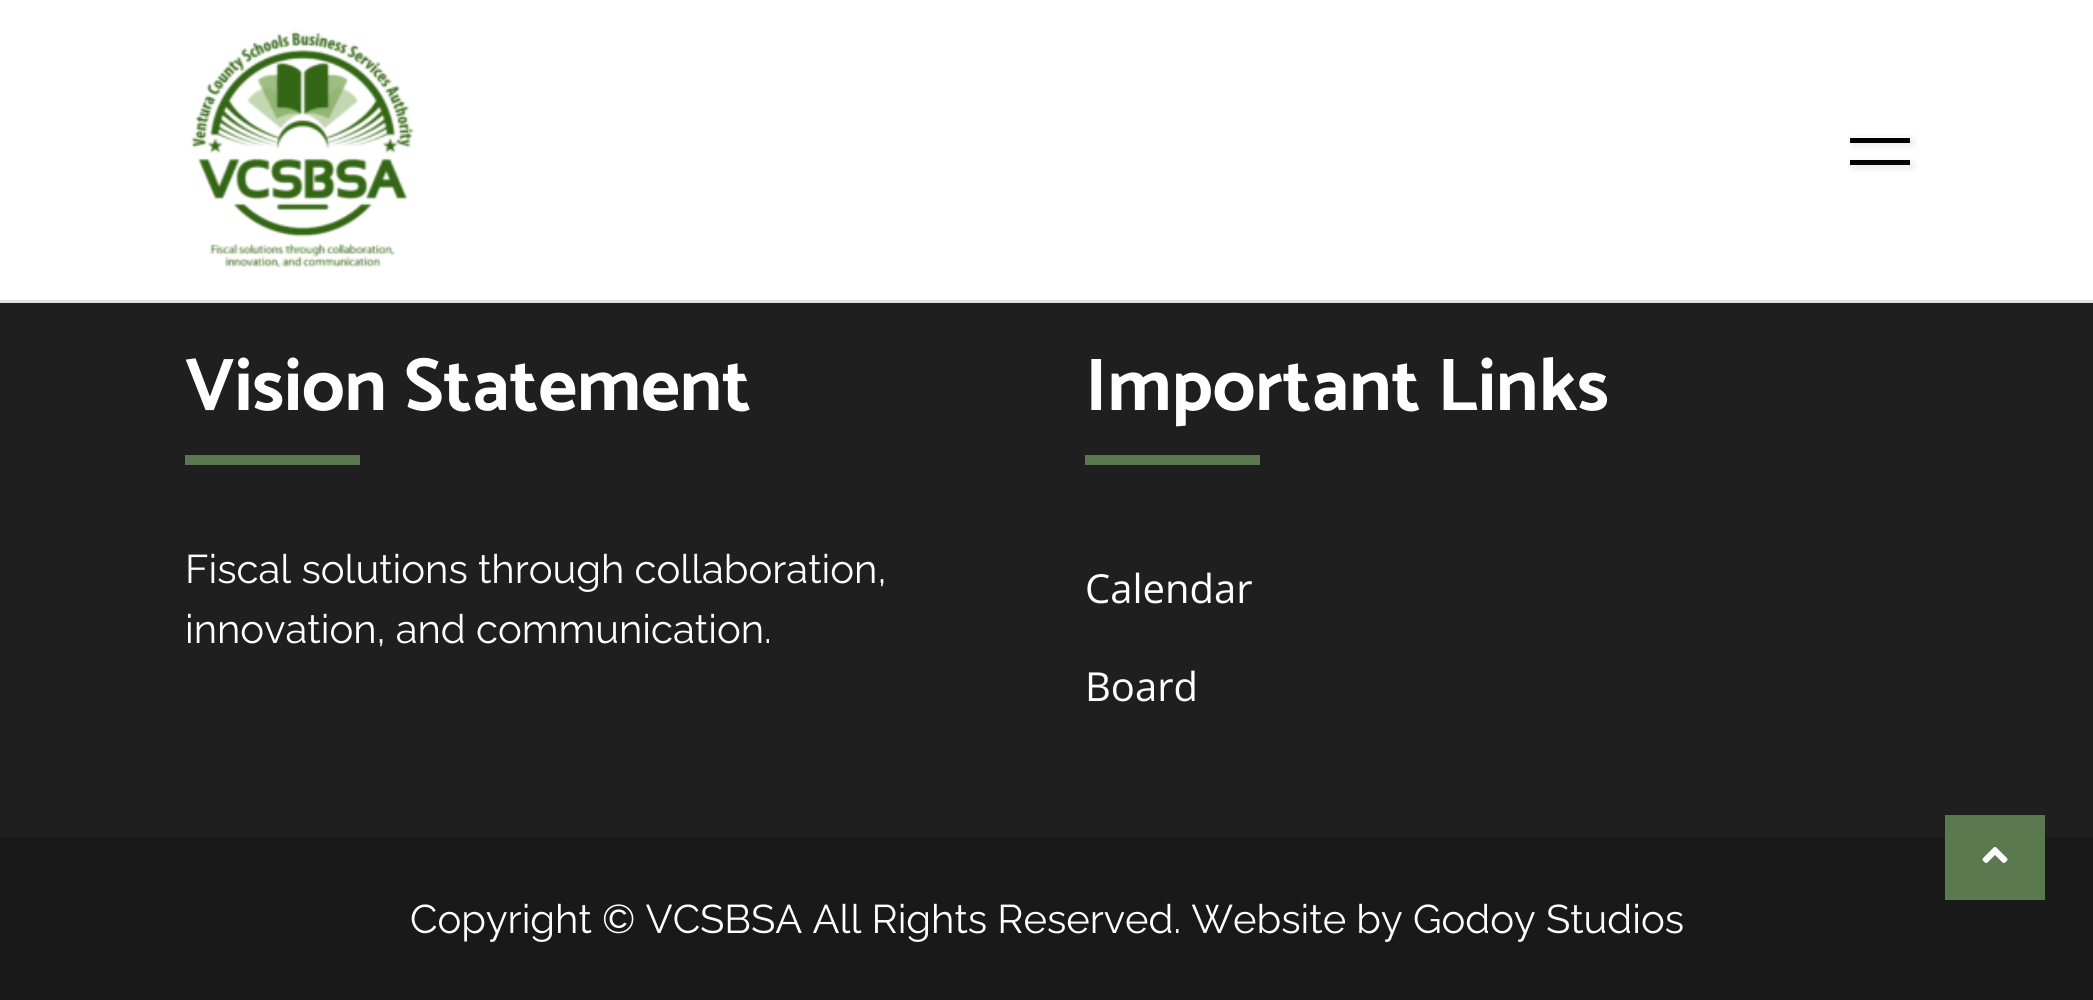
import math
import cairo

surface = cairo.ImageSurface(cairo.FORMAT_RGB24, 2093, 1000)
ctx = cairo.Context(surface)
options = cairo.FontOptions()
options.set_hint_metrics(cairo.HINT_METRICS_OFF)
options.set_hint_style(cairo.HINT_STYLE_NONE)
ctx.set_font_options(options)
ctx.set_miter_limit(4)


def set_color(code):
    ctx.set_source_rgb(*(v / 255 for v in bytes.fromhex(code[-6:])))


def draw_text(x, y, s, family, size, color, bold=False, italic=False):
    ctx.select_font_face(family, cairo.FONT_SLANT_ITALIC if italic else cairo.FONT_SLANT_NORMAL, cairo.FONT_WEIGHT_BOLD if bold else cairo.FONT_WEIGHT_NORMAL)
    ctx.set_font_size(size)
    set_color(color)
    ctx.move_to(x, y)
    ctx.show_text(s)


def fill_rect(x, y, w, h, color):
    set_color(color)
    ctx.rectangle(x, y, w, h)
    ctx.fill()


def rounded_rect(x, y, w, h, r):
    ctx.new_sub_path()
    for i, (u, v) in enumerate([(x + w - r, y + h - r), (x + r, y + h - r), (x + r, y + r), (x + w - r, y + r)]):
        ctx.arc(u, v, r, i * math.pi / 2, (i + 1) * math.pi / 2)
    ctx.close_path()


def draw_shadow(x, y, w, h, r, blur, alpha):
    ctx.push_group_with_content(cairo.CONTENT_ALPHA)
    ctx.set_operator(cairo.OPERATOR_SOURCE)
    for i in range(15, -16, -2):
        e = blur * i / 6
        if min(w, h) + 2 * e > 0:
            ctx.set_source_rgba(0, 0, 0, alpha * math.erfc((i - 1) / 8.5) / 2)
            rounded_rect(x - e, y - e, w + 2 * e, h + 2 * e, max(0, min(r + e + blur * .6, min(w, h) / 2 + e)))
            ctx.fill()
    ctx.mask(ctx.pop_group())


def draw_image(path, x, y, w, h):
    ctx.save()
    ctx.set_source_surface(cairo.ImageSurface.create_from_png(path), x, y)
    ctx.rectangle(x, y, w, h)
    ctx.fill()
    ctx.restore()


set_color("#1f1f1f")
ctx.paint()
fill_rect(0, 0, 2093, 300, "#ffffff")
fill_rect(0, 300, 2093, 3, "#e0e0e0")
draw_image("assets/img1.png", 191, 31, 223, 237)
set_color("#000000")
draw_shadow(1853, 140, 60, 5, 0, 4, 0.1)
fill_rect(1850, 138, 60, 5, "#000000")
set_color("#000000")
draw_shadow(1853, 163, 60, 5, 0, 4, 0.1)
fill_rect(1850, 160, 60, 5, "#000000")
draw_text(185, 410, "Vision Statement", "Catamaran", 75, "#ffffff", bold=True)
fill_rect(185, 455, 175, 10, "#5b794e")
draw_text(185, 583, "Fiscal solutions through collaboration,", "Raleway", 40, "#ffffff")
draw_text(185, 643, "innovation, and communication.", "Raleway", 40, "#ffffff")
draw_text(1085, 410, "Important Links", "Catamaran", 75, "#ffffff", bold=True)
fill_rect(1085, 455, 175, 10, "#5b794e")
draw_text(1085, 603, "Calendar", "Open Sans", 40, "#ffffff")
draw_text(1085, 701, "Board", "Open Sans", 40, "#ffffff")
fill_rect(0, 838, 2093, 162, "#191919")
draw_text(410, 933, "Copyright © VCSBSA All Rights Reserved. Website by Godoy Studios", "Raleway", 40, "#ffffff")
fill_rect(1945, 815, 100, 85, "#5b794e")
draw_image("assets/img2.png", 1982, 847, 26, 16)
surface.write_to_png("output.png")
